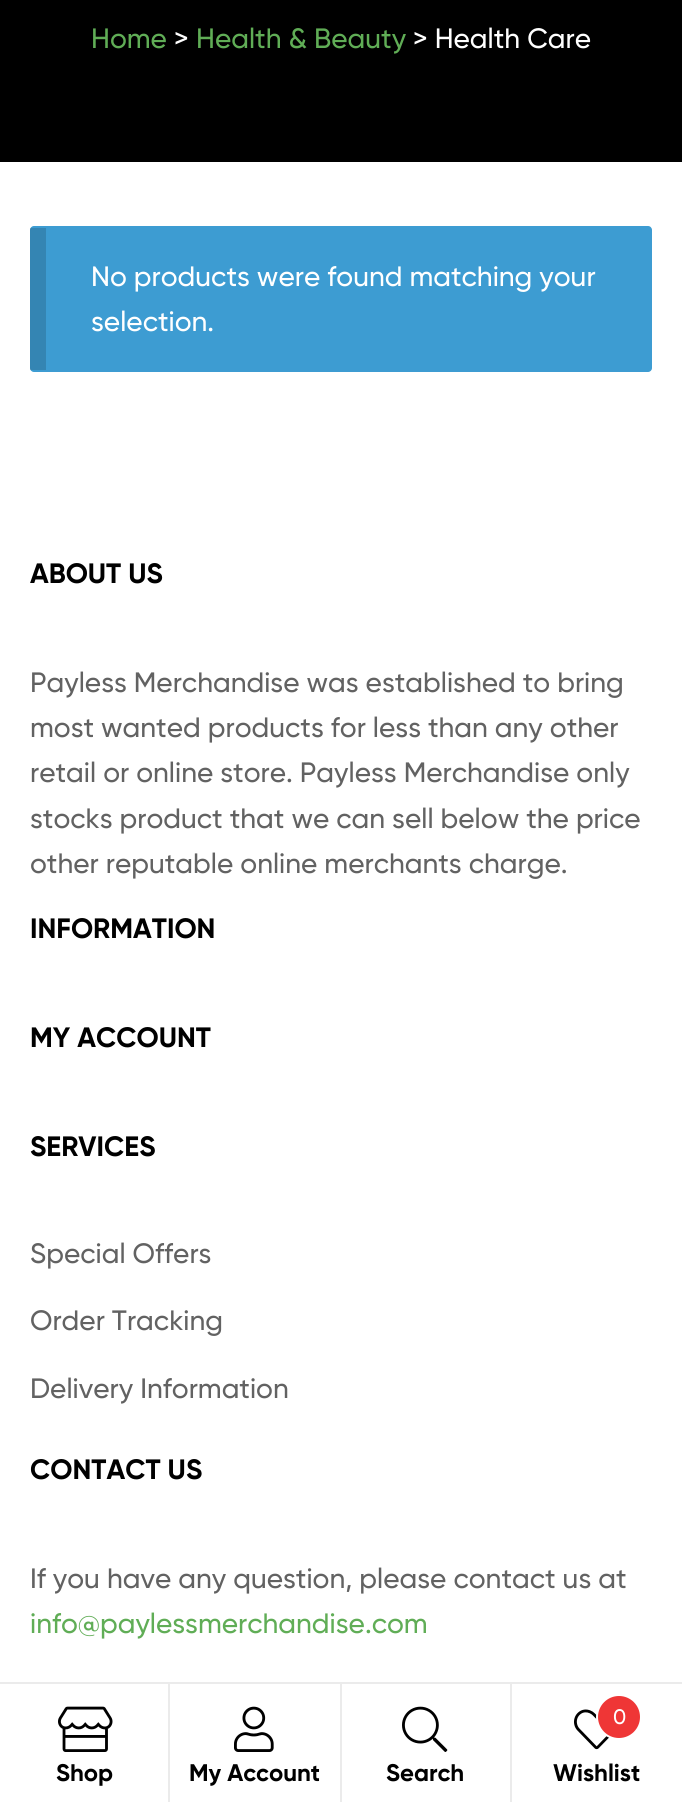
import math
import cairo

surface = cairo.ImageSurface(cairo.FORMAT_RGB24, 682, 1802)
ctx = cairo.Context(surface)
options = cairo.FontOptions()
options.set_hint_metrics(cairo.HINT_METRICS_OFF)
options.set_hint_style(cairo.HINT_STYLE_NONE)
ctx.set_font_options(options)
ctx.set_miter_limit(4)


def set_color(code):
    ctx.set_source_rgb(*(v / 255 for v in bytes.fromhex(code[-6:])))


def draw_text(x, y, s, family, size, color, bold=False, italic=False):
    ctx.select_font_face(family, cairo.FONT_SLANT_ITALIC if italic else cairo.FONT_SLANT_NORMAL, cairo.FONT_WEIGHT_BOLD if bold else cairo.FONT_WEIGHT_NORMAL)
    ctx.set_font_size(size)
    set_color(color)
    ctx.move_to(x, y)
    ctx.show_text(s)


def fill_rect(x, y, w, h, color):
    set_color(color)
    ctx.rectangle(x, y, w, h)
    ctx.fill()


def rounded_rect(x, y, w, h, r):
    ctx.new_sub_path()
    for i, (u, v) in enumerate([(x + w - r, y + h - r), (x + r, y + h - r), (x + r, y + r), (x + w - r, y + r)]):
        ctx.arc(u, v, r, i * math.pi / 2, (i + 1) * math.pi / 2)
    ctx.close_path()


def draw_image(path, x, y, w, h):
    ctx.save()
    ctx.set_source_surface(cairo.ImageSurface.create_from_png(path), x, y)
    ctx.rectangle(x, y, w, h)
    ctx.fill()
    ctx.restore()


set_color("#ffffff")
ctx.paint()
fill_rect(0, 0, 682, 162, "#000000")
draw_text(91, 48, "Home", "Gilroy Medium", 28, "#60ad56")
draw_text(174, 48, ">", "Gilroy Medium", 28, "#ffffff")
draw_text(196, 48, "Health & Beauty", "Gilroy Medium", 28, "#60ad56")
draw_text(413, 48, "> Health Care", "Gilroy Medium", 28, "#ffffff")
set_color("#3d9cd2")
rounded_rect(30, 226, 622, 146, 4)
ctx.fill()
ctx.set_source_rgba(0, 0, 0, 0.15)
ctx.rectangle(30, 228, 16, 142)
ctx.fill()
draw_text(91, 286, "No products were found matching your", "Gilroy Medium", 28, "#ffffff")
draw_text(91, 331, "selection.", "Gilroy Medium", 28, "#ffffff")
draw_text(30, 583, "ABOUT US", "Gilroy", 28, "#000000", bold=True)
draw_text(30, 692, "Payless Merchandise was established to bring", "Gilroy Medium", 28, "#626262")
draw_text(30, 737, "most wanted products for less than any other", "Gilroy Medium", 28, "#626262")
draw_text(30, 782, "retail or online store. Payless Merchandise only", "Gilroy Medium", 28, "#626262")
draw_text(30, 828, "stocks product that we can sell below the price", "Gilroy Medium", 28, "#626262")
draw_text(30, 873, "other reputable online merchants charge.", "Gilroy Medium", 28, "#626262")
draw_text(30, 938, "INFORMATION", "Gilroy", 28, "#000000", bold=True)
draw_text(30, 1047, "MY ACCOUNT", "Gilroy", 28, "#000000", bold=True)
draw_text(30, 1156, "SERVICES", "Gilroy", 28, "#000000", bold=True)
draw_text(30, 1263, "Special Offers", "Gilroy Medium", 28, "#626262")
draw_text(30, 1330, "Order Tracking", "Gilroy Medium", 28, "#626262")
draw_text(30, 1398, "Delivery Information", "Gilroy Medium", 28, "#626262")
draw_text(30, 1479, "CONTACT US", "Gilroy", 28, "#000000", bold=True)
draw_text(30, 1588, "If you have any question, please contact us at", "Gilroy Medium", 28, "#626262")
draw_text(30, 1633, "info@paylessmerchandise.com", "Gilroy Medium", 28, "#60ad56")
fill_rect(0, 1682, 682, 2, "#ebebeb")
fill_rect(168, 1684, 2, 118, "#ebebeb")
draw_image("assets/img1.png", 58, 1706, 55, 46)
draw_text(56, 1781, "Shop", "Gilroy", 24, "#000000", bold=True)
fill_rect(340, 1684, 2, 118, "#ebebeb")
draw_image("assets/img2.png", 234, 1706, 40, 46)
draw_text(189, 1781, "My Account", "Gilroy", 24, "#000000", bold=True)
fill_rect(510, 1684, 2, 118, "#ebebeb")
draw_image("assets/img3.png", 402, 1706, 46, 46)
draw_text(386, 1781, "Search", "Gilroy", 24, "#000000", bold=True)
draw_image("assets/img4.png", 574, 1709, 36, 41)
set_color("#ef3636")
ctx.arc(619, 1717, 22, 0, 2 * math.pi)
ctx.fill_preserve()
set_color("#ffffff")
ctx.stroke()
draw_text(613, 1724, "0", "Gilroy Medium", 21, "#ffffff")
draw_text(553, 1781, "Wishlist", "Gilroy", 24, "#000000", bold=True)
surface.write_to_png("output.png")
